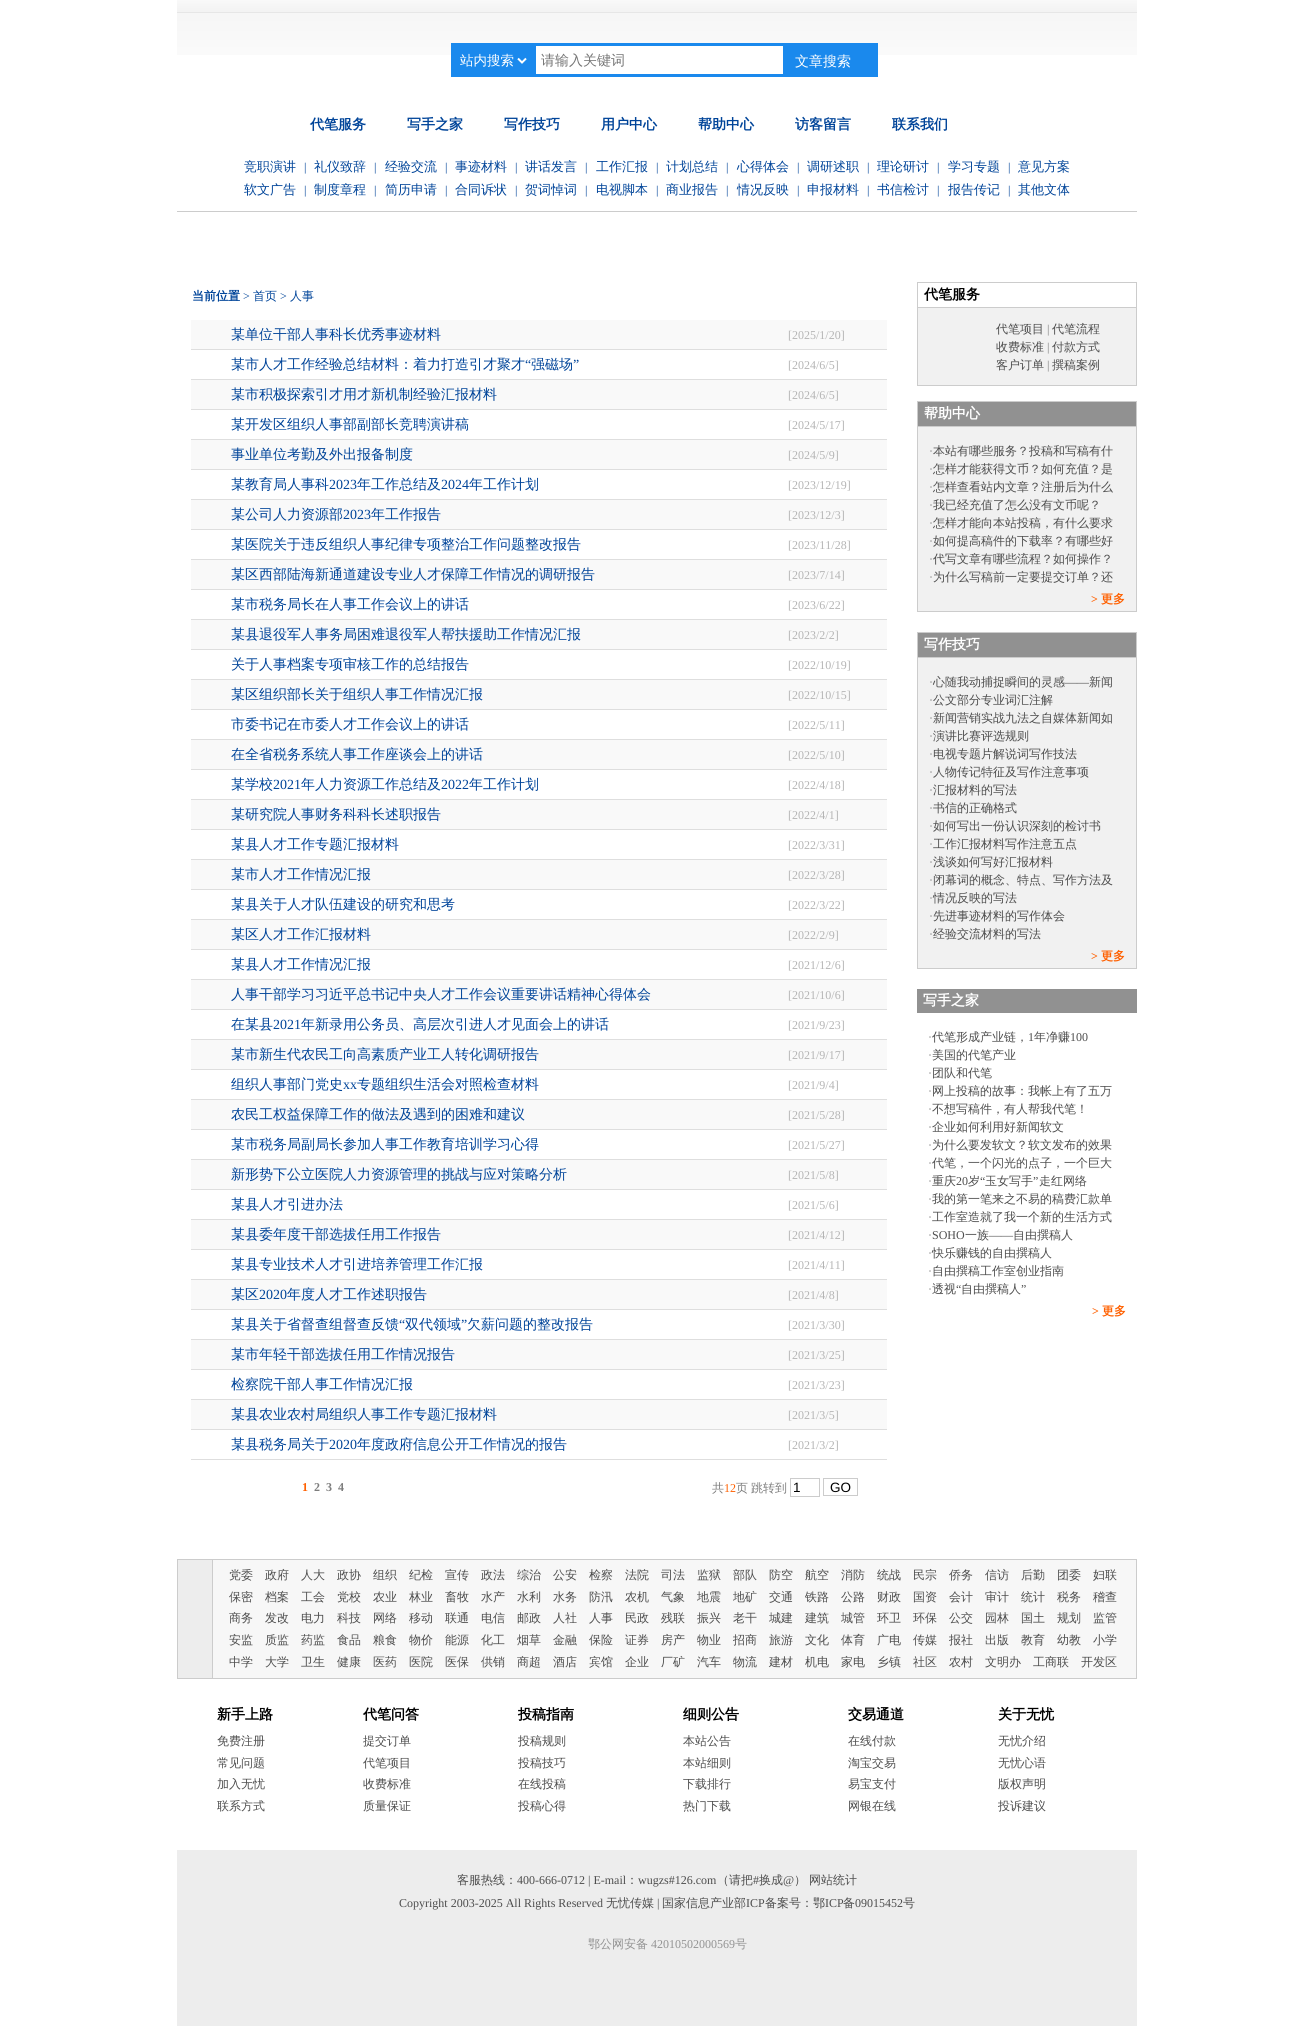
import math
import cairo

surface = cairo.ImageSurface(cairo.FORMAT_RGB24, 1314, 2029)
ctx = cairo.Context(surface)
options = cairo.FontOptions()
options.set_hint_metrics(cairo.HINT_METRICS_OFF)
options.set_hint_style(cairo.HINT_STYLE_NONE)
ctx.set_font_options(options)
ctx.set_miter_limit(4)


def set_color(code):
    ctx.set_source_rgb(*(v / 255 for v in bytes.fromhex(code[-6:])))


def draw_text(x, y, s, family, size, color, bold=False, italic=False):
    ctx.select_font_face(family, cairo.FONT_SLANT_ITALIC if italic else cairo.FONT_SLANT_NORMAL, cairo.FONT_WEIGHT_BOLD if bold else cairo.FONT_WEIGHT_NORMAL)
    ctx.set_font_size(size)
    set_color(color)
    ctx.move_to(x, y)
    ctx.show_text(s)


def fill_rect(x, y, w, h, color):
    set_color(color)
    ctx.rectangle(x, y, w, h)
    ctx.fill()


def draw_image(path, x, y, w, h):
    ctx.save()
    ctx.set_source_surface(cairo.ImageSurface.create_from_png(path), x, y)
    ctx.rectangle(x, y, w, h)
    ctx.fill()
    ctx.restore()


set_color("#ffffff")
ctx.paint()
draw_image("assets/img1.png", 177, 0, 960, 55)
fill_rect(451, 43, 427, 34, "#1a89ed")
ctx.new_path()
ctx.move_to(518, 58.5)
ctx.line_to(522, 62.5)
ctx.line_to(526, 58.5)
set_color("#ffffff")
ctx.stroke()
draw_text(460, 65, "站内搜索", "WenQuanYi Zen Hei Medium", 13.5, "#ffffff")
fill_rect(536, 46, 247, 28, "#ffffff")
draw_text(541, 65, "请输入关键词", "WenQuanYi Zen Hei Medium", 14, "#757575")
draw_text(795, 66, "文章搜索", "WenQuanYi Zen Hei Medium", 14, "#ffffff")
draw_text(310, 129, "代笔服务", "WenQuanYi Zen Hei", 14, "#004499", bold=True)
draw_text(407, 129, "写手之家", "WenQuanYi Zen Hei", 14, "#004499", bold=True)
draw_text(504, 129, "写作技巧", "WenQuanYi Zen Hei", 14, "#004499", bold=True)
draw_text(601, 129, "用户中心", "WenQuanYi Zen Hei", 14, "#004499", bold=True)
draw_text(698, 129, "帮助中心", "WenQuanYi Zen Hei", 14, "#004499", bold=True)
draw_text(795, 129, "访客留言", "WenQuanYi Zen Hei", 14, "#004499", bold=True)
draw_text(892, 129, "联系我们", "WenQuanYi Zen Hei", 14, "#004499", bold=True)
draw_text(244, 171, "竞职演讲", "WenQuanYi Zen Hei Medium", 13, "#004499")
draw_text(304, 171, "|", "Liberation Serif", 12, "#004499")
draw_text(314, 171, "礼仪致辞", "WenQuanYi Zen Hei Medium", 13, "#004499")
draw_text(374, 171, "|", "Liberation Serif", 12, "#004499")
draw_text(385, 171, "经验交流", "WenQuanYi Zen Hei Medium", 13, "#004499")
draw_text(445, 171, "|", "Liberation Serif", 12, "#004499")
draw_text(455, 171, "事迹材料", "WenQuanYi Zen Hei Medium", 13, "#004499")
draw_text(515, 171, "|", "Liberation Serif", 12, "#004499")
draw_text(525, 171, "讲话发言", "WenQuanYi Zen Hei Medium", 13, "#004499")
draw_text(585, 171, "|", "Liberation Serif", 12, "#004499")
draw_text(596, 171, "工作汇报", "WenQuanYi Zen Hei Medium", 13, "#004499")
draw_text(656, 171, "|", "Liberation Serif", 12, "#004499")
draw_text(666, 171, "计划总结", "WenQuanYi Zen Hei Medium", 13, "#004499")
draw_text(726, 171, "|", "Liberation Serif", 12, "#004499")
draw_text(737, 171, "心得体会", "WenQuanYi Zen Hei Medium", 13, "#004499")
draw_text(797, 171, "|", "Liberation Serif", 12, "#004499")
draw_text(807, 171, "调研述职", "WenQuanYi Zen Hei Medium", 13, "#004499")
draw_text(867, 171, "|", "Liberation Serif", 12, "#004499")
draw_text(877, 171, "理论研讨", "WenQuanYi Zen Hei Medium", 13, "#004499")
draw_text(937, 171, "|", "Liberation Serif", 12, "#004499")
draw_text(948, 171, "学习专题", "WenQuanYi Zen Hei Medium", 13, "#004499")
draw_text(1008, 171, "|", "Liberation Serif", 12, "#004499")
draw_text(1018, 171, "意见方案", "WenQuanYi Zen Hei Medium", 13, "#004499")
draw_text(244, 194, "软文广告", "WenQuanYi Zen Hei Medium", 13, "#004499")
draw_text(304, 194, "|", "Liberation Serif", 12, "#004499")
draw_text(314, 194, "制度章程", "WenQuanYi Zen Hei Medium", 13, "#004499")
draw_text(374, 194, "|", "Liberation Serif", 12, "#004499")
draw_text(385, 194, "简历申请", "WenQuanYi Zen Hei Medium", 13, "#004499")
draw_text(445, 194, "|", "Liberation Serif", 12, "#004499")
draw_text(455, 194, "合同诉状", "WenQuanYi Zen Hei Medium", 13, "#004499")
draw_text(515, 194, "|", "Liberation Serif", 12, "#004499")
draw_text(525, 194, "贺词悼词", "WenQuanYi Zen Hei Medium", 13, "#004499")
draw_text(585, 194, "|", "Liberation Serif", 12, "#004499")
draw_text(596, 194, "电视脚本", "WenQuanYi Zen Hei Medium", 13, "#004499")
draw_text(656, 194, "|", "Liberation Serif", 12, "#004499")
draw_text(666, 194, "商业报告", "WenQuanYi Zen Hei Medium", 13, "#004499")
draw_text(726, 194, "|", "Liberation Serif", 12, "#004499")
draw_text(737, 194, "情况反映", "WenQuanYi Zen Hei Medium", 13, "#004499")
draw_text(797, 194, "|", "Liberation Serif", 12, "#004499")
draw_text(807, 194, "申报材料", "WenQuanYi Zen Hei Medium", 13, "#004499")
draw_text(867, 194, "|", "Liberation Serif", 12, "#004499")
draw_text(877, 194, "书信检讨", "WenQuanYi Zen Hei Medium", 13, "#004499")
draw_text(937, 194, "|", "Liberation Serif", 12, "#004499")
draw_text(948, 194, "报告传记", "WenQuanYi Zen Hei Medium", 13, "#004499")
draw_text(1008, 194, "|", "Liberation Serif", 12, "#004499")
draw_text(1018, 194, "其他文体", "WenQuanYi Zen Hei Medium", 13, "#004499")
fill_rect(177, 211, 960, 1, "#cccccc")
draw_text(192, 300, "当前位置", "WenQuanYi Zen Hei", 12, "#004499", bold=True)
draw_text(243, 300, ">", "Liberation Serif", 12, "#004499")
draw_text(253, 300, "首页", "WenQuanYi Zen Hei Medium", 12, "#004499")
draw_text(280, 300, ">", "Liberation Serif", 12, "#004499")
draw_text(290, 300, "人事", "WenQuanYi Zen Hei Medium", 12, "#004499")
fill_rect(191, 320, 696, 29, "#f9f9f9")
fill_rect(191, 349, 696, 1, "#dedede")
draw_text(231, 339, "某单位干部人事科长优秀事迹材料", "WenQuanYi Zen Hei Medium", 14, "#004499")
draw_text(788, 339, "[2025/1/20]", "Liberation Serif", 12, "#b5b5b5")
fill_rect(191, 379, 696, 1, "#dedede")
draw_text(231, 369, "某市人才工作经验总结材料：着力打造引才聚才", "WenQuanYi Zen Hei Medium", 14, "#004499")
draw_text(525, 369, "“", "Liberation Serif", 14, "#004499")
draw_text(531, 369, "强磁场", "WenQuanYi Zen Hei Medium", 14, "#004499")
draw_text(573, 369, "”", "Liberation Serif", 14, "#004499")
draw_text(788, 369, "[2024/6/5]", "Liberation Serif", 12, "#b5b5b5")
fill_rect(191, 380, 696, 29, "#f9f9f9")
fill_rect(191, 409, 696, 1, "#dedede")
draw_text(231, 399, "某市积极探索引才用才新机制经验汇报材料", "WenQuanYi Zen Hei Medium", 14, "#004499")
draw_text(788, 399, "[2024/6/5]", "Liberation Serif", 12, "#b5b5b5")
fill_rect(191, 439, 696, 1, "#dedede")
draw_text(231, 429, "某开发区组织人事部副部长竞聘演讲稿", "WenQuanYi Zen Hei Medium", 14, "#004499")
draw_text(788, 429, "[2024/5/17]", "Liberation Serif", 12, "#b5b5b5")
fill_rect(191, 440, 696, 29, "#f9f9f9")
fill_rect(191, 469, 696, 1, "#dedede")
draw_text(231, 459, "事业单位考勤及外出报备制度", "WenQuanYi Zen Hei Medium", 14, "#004499")
draw_text(788, 459, "[2024/5/9]", "Liberation Serif", 12, "#b5b5b5")
fill_rect(191, 499, 696, 1, "#dedede")
draw_text(231, 489, "某教育局人事科", "WenQuanYi Zen Hei Medium", 14, "#004499")
draw_text(329, 489, "2023", "Liberation Serif", 14, "#004499")
draw_text(357, 489, "年工作总结及", "WenQuanYi Zen Hei Medium", 14, "#004499")
draw_text(441, 489, "2024", "Liberation Serif", 14, "#004499")
draw_text(469, 489, "年工作计划", "WenQuanYi Zen Hei Medium", 14, "#004499")
draw_text(788, 489, "[2023/12/19]", "Liberation Serif", 12, "#b5b5b5")
fill_rect(191, 500, 696, 29, "#f9f9f9")
fill_rect(191, 529, 696, 1, "#dedede")
draw_text(231, 519, "某公司人力资源部", "WenQuanYi Zen Hei Medium", 14, "#004499")
draw_text(343, 519, "2023", "Liberation Serif", 14, "#004499")
draw_text(371, 519, "年工作报告", "WenQuanYi Zen Hei Medium", 14, "#004499")
draw_text(788, 519, "[2023/12/3]", "Liberation Serif", 12, "#b5b5b5")
fill_rect(191, 559, 696, 1, "#dedede")
draw_text(231, 549, "某医院关于违反组织人事纪律专项整治工作问题整改报告", "WenQuanYi Zen Hei Medium", 14, "#004499")
draw_text(788, 549, "[2023/11/28]", "Liberation Serif", 12, "#b5b5b5")
fill_rect(191, 560, 696, 29, "#f9f9f9")
fill_rect(191, 589, 696, 1, "#dedede")
draw_text(231, 579, "某区西部陆海新通道建设专业人才保障工作情况的调研报告", "WenQuanYi Zen Hei Medium", 14, "#004499")
draw_text(788, 579, "[2023/7/14]", "Liberation Serif", 12, "#b5b5b5")
fill_rect(191, 619, 696, 1, "#dedede")
draw_text(231, 609, "某市税务局长在人事工作会议上的讲话", "WenQuanYi Zen Hei Medium", 14, "#004499")
draw_text(788, 609, "[2023/6/22]", "Liberation Serif", 12, "#b5b5b5")
fill_rect(191, 620, 696, 29, "#f9f9f9")
fill_rect(191, 649, 696, 1, "#dedede")
draw_text(231, 639, "某县退役军人事务局困难退役军人帮扶援助工作情况汇报", "WenQuanYi Zen Hei Medium", 14, "#004499")
draw_text(788, 639, "[2023/2/2]", "Liberation Serif", 12, "#b5b5b5")
fill_rect(191, 679, 696, 1, "#dedede")
draw_text(231, 669, "关于人事档案专项审核工作的总结报告", "WenQuanYi Zen Hei Medium", 14, "#004499")
draw_text(788, 669, "[2022/10/19]", "Liberation Serif", 12, "#b5b5b5")
fill_rect(191, 680, 696, 29, "#f9f9f9")
fill_rect(191, 709, 696, 1, "#dedede")
draw_text(231, 699, "某区组织部长关于组织人事工作情况汇报", "WenQuanYi Zen Hei Medium", 14, "#004499")
draw_text(788, 699, "[2022/10/15]", "Liberation Serif", 12, "#b5b5b5")
fill_rect(191, 739, 696, 1, "#dedede")
draw_text(231, 729, "市委书记在市委人才工作会议上的讲话", "WenQuanYi Zen Hei Medium", 14, "#004499")
draw_text(788, 729, "[2022/5/11]", "Liberation Serif", 12, "#b5b5b5")
fill_rect(191, 740, 696, 29, "#f9f9f9")
fill_rect(191, 769, 696, 1, "#dedede")
draw_text(231, 759, "在全省税务系统人事工作座谈会上的讲话", "WenQuanYi Zen Hei Medium", 14, "#004499")
draw_text(788, 759, "[2022/5/10]", "Liberation Serif", 12, "#b5b5b5")
fill_rect(191, 799, 696, 1, "#dedede")
draw_text(231, 789, "某学校", "WenQuanYi Zen Hei Medium", 14, "#004499")
draw_text(273, 789, "2021", "Liberation Serif", 14, "#004499")
draw_text(301, 789, "年人力资源工作总结及", "WenQuanYi Zen Hei Medium", 14, "#004499")
draw_text(441, 789, "2022", "Liberation Serif", 14, "#004499")
draw_text(469, 789, "年工作计划", "WenQuanYi Zen Hei Medium", 14, "#004499")
draw_text(788, 789, "[2022/4/18]", "Liberation Serif", 12, "#b5b5b5")
fill_rect(191, 800, 696, 29, "#f9f9f9")
fill_rect(191, 829, 696, 1, "#dedede")
draw_text(231, 819, "某研究院人事财务科科长述职报告", "WenQuanYi Zen Hei Medium", 14, "#004499")
draw_text(788, 819, "[2022/4/1]", "Liberation Serif", 12, "#b5b5b5")
fill_rect(191, 859, 696, 1, "#dedede")
draw_text(231, 849, "某县人才工作专题汇报材料", "WenQuanYi Zen Hei Medium", 14, "#004499")
draw_text(788, 849, "[2022/3/31]", "Liberation Serif", 12, "#b5b5b5")
fill_rect(191, 860, 696, 29, "#f9f9f9")
fill_rect(191, 889, 696, 1, "#dedede")
draw_text(231, 879, "某市人才工作情况汇报", "WenQuanYi Zen Hei Medium", 14, "#004499")
draw_text(788, 879, "[2022/3/28]", "Liberation Serif", 12, "#b5b5b5")
fill_rect(191, 919, 696, 1, "#dedede")
draw_text(231, 909, "某县关于人才队伍建设的研究和思考", "WenQuanYi Zen Hei Medium", 14, "#004499")
draw_text(788, 909, "[2022/3/22]", "Liberation Serif", 12, "#b5b5b5")
fill_rect(191, 920, 696, 29, "#f9f9f9")
fill_rect(191, 949, 696, 1, "#dedede")
draw_text(231, 939, "某区人才工作汇报材料", "WenQuanYi Zen Hei Medium", 14, "#004499")
draw_text(788, 939, "[2022/2/9]", "Liberation Serif", 12, "#b5b5b5")
fill_rect(191, 979, 696, 1, "#dedede")
draw_text(231, 969, "某县人才工作情况汇报", "WenQuanYi Zen Hei Medium", 14, "#004499")
draw_text(788, 969, "[2021/12/6]", "Liberation Serif", 12, "#b5b5b5")
fill_rect(191, 980, 696, 29, "#f9f9f9")
fill_rect(191, 1009, 696, 1, "#dedede")
draw_text(231, 999, "人事干部学习习近平总书记中央人才工作会议重要讲话精神心得体会", "WenQuanYi Zen Hei Medium", 14, "#004499")
draw_text(788, 999, "[2021/10/6]", "Liberation Serif", 12, "#b5b5b5")
fill_rect(191, 1039, 696, 1, "#dedede")
draw_text(231, 1029, "在某县", "WenQuanYi Zen Hei Medium", 14, "#004499")
draw_text(273, 1029, "2021", "Liberation Serif", 14, "#004499")
draw_text(301, 1029, "年新录用公务员、高层次引进人才见面会上的讲话", "WenQuanYi Zen Hei Medium", 14, "#004499")
draw_text(788, 1029, "[2021/9/23]", "Liberation Serif", 12, "#b5b5b5")
fill_rect(191, 1040, 696, 29, "#f9f9f9")
fill_rect(191, 1069, 696, 1, "#dedede")
draw_text(231, 1059, "某市新生代农民工向高素质产业工人转化调研报告", "WenQuanYi Zen Hei Medium", 14, "#004499")
draw_text(788, 1059, "[2021/9/17]", "Liberation Serif", 12, "#b5b5b5")
fill_rect(191, 1099, 696, 1, "#dedede")
draw_text(231, 1089, "组织人事部门党史", "WenQuanYi Zen Hei Medium", 14, "#004499")
draw_text(343, 1089, "xx", "Liberation Serif", 14, "#004499")
draw_text(357, 1089, "专题组织生活会对照检查材料", "WenQuanYi Zen Hei Medium", 14, "#004499")
draw_text(788, 1089, "[2021/9/4]", "Liberation Serif", 12, "#b5b5b5")
fill_rect(191, 1100, 696, 29, "#f9f9f9")
fill_rect(191, 1129, 696, 1, "#dedede")
draw_text(231, 1119, "农民工权益保障工作的做法及遇到的困难和建议", "WenQuanYi Zen Hei Medium", 14, "#004499")
draw_text(788, 1119, "[2021/5/28]", "Liberation Serif", 12, "#b5b5b5")
fill_rect(191, 1159, 696, 1, "#dedede")
draw_text(231, 1149, "某市税务局副局长参加人事工作教育培训学习心得", "WenQuanYi Zen Hei Medium", 14, "#004499")
draw_text(788, 1149, "[2021/5/27]", "Liberation Serif", 12, "#b5b5b5")
fill_rect(191, 1160, 696, 29, "#f9f9f9")
fill_rect(191, 1189, 696, 1, "#dedede")
draw_text(231, 1179, "新形势下公立医院人力资源管理的挑战与应对策略分析", "WenQuanYi Zen Hei Medium", 14, "#004499")
draw_text(788, 1179, "[2021/5/8]", "Liberation Serif", 12, "#b5b5b5")
fill_rect(191, 1219, 696, 1, "#dedede")
draw_text(231, 1209, "某县人才引进办法", "WenQuanYi Zen Hei Medium", 14, "#004499")
draw_text(788, 1209, "[2021/5/6]", "Liberation Serif", 12, "#b5b5b5")
fill_rect(191, 1220, 696, 29, "#f9f9f9")
fill_rect(191, 1249, 696, 1, "#dedede")
draw_text(231, 1239, "某县委年度干部选拔任用工作报告", "WenQuanYi Zen Hei Medium", 14, "#004499")
draw_text(788, 1239, "[2021/4/12]", "Liberation Serif", 12, "#b5b5b5")
fill_rect(191, 1279, 696, 1, "#dedede")
draw_text(231, 1269, "某县专业技术人才引进培养管理工作汇报", "WenQuanYi Zen Hei Medium", 14, "#004499")
draw_text(788, 1269, "[2021/4/11]", "Liberation Serif", 12, "#b5b5b5")
fill_rect(191, 1280, 696, 29, "#f9f9f9")
fill_rect(191, 1309, 696, 1, "#dedede")
draw_text(231, 1299, "某区", "WenQuanYi Zen Hei Medium", 14, "#004499")
draw_text(259, 1299, "2020", "Liberation Serif", 14, "#004499")
draw_text(287, 1299, "年度人才工作述职报告", "WenQuanYi Zen Hei Medium", 14, "#004499")
draw_text(788, 1299, "[2021/4/8]", "Liberation Serif", 12, "#b5b5b5")
fill_rect(191, 1339, 696, 1, "#dedede")
draw_text(231, 1329, "某县关于省督查组督查反馈", "WenQuanYi Zen Hei Medium", 14, "#004499")
draw_text(399, 1329, "“", "Liberation Serif", 14, "#004499")
draw_text(405, 1329, "双代领域", "WenQuanYi Zen Hei Medium", 14, "#004499")
draw_text(461, 1329, "”", "Liberation Serif", 14, "#004499")
draw_text(467, 1329, "欠薪问题的整改报告", "WenQuanYi Zen Hei Medium", 14, "#004499")
draw_text(788, 1329, "[2021/3/30]", "Liberation Serif", 12, "#b5b5b5")
fill_rect(191, 1340, 696, 29, "#f9f9f9")
fill_rect(191, 1369, 696, 1, "#dedede")
draw_text(231, 1359, "某市年轻干部选拔任用工作情况报告", "WenQuanYi Zen Hei Medium", 14, "#004499")
draw_text(788, 1359, "[2021/3/25]", "Liberation Serif", 12, "#b5b5b5")
fill_rect(191, 1399, 696, 1, "#dedede")
draw_text(231, 1389, "检察院干部人事工作情况汇报", "WenQuanYi Zen Hei Medium", 14, "#004499")
draw_text(788, 1389, "[2021/3/23]", "Liberation Serif", 12, "#b5b5b5")
fill_rect(191, 1400, 696, 29, "#f9f9f9")
fill_rect(191, 1429, 696, 1, "#dedede")
draw_text(231, 1419, "某县农业农村局组织人事工作专题汇报材料", "WenQuanYi Zen Hei Medium", 14, "#004499")
draw_text(788, 1419, "[2021/3/5]", "Liberation Serif", 12, "#b5b5b5")
fill_rect(191, 1459, 696, 1, "#dedede")
draw_text(231, 1449, "某县税务局关于", "WenQuanYi Zen Hei Medium", 14, "#004499")
draw_text(329, 1449, "2020", "Liberation Serif", 14, "#004499")
draw_text(357, 1449, "年度政府信息公开工作情况的报告", "WenQuanYi Zen Hei Medium", 14, "#004499")
draw_text(788, 1449, "[2021/3/2]", "Liberation Serif", 12, "#b5b5b5")
draw_text(302, 1491, "1", "Liberation Serif", 12, "#ff6000", bold=True)
draw_text(314, 1491, "2", "Liberation Serif", 12, "#7d7d7d", bold=True)
draw_text(326, 1491, "3", "Liberation Serif", 12, "#7d7d7d", bold=True)
draw_text(338, 1491, "4", "Liberation Serif", 12, "#7d7d7d", bold=True)
draw_text(712, 1492, "共", "WenQuanYi Zen Hei Medium", 12, "#7d7d7d")
draw_text(724, 1492, "12", "Liberation Serif", 12, "#ff6000")
draw_text(736, 1492, "页", "WenQuanYi Zen Hei Medium", 12, "#7d7d7d")
draw_text(751, 1492, "跳转到", "WenQuanYi Zen Hei Medium", 12, "#7d7d7d")
ctx.rectangle(790.5, 1478.5, 29, 18)
set_color("#cccccc")
ctx.set_line_width(1)
ctx.stroke()
draw_text(793, 1492, "1", "Liberation Sans", 13.5, "#000000")
ctx.rectangle(823.5, 1478.5, 34, 17)
set_color("#cccccc")
ctx.stroke()
draw_text(830, 1492, "GO", "Liberation Sans", 13.5, "#000000")
fill_rect(917, 282, 220, 104, "#cccccc")
fill_rect(918, 283, 218, 24, "#ffffff")
draw_text(924, 299, "代笔服务", "WenQuanYi Zen Hei", 14, "#000000", bold=True)
fill_rect(918, 308, 218, 77, "#f1f1f1")
draw_text(996, 333, "代笔项目", "WenQuanYi Zen Hei Medium", 12, "#4d4d4d")
draw_text(1047, 333, "|", "Liberation Serif", 12, "#7d7d7d")
draw_text(1052, 333, "代笔流程", "WenQuanYi Zen Hei Medium", 12, "#4d4d4d")
draw_text(996, 351, "收费标准", "WenQuanYi Zen Hei Medium", 12, "#4d4d4d")
draw_text(1047, 351, "|", "Liberation Serif", 12, "#7d7d7d")
draw_text(1052, 351, "付款方式", "WenQuanYi Zen Hei Medium", 12, "#4d4d4d")
draw_text(996, 369, "客户订单", "WenQuanYi Zen Hei Medium", 12, "#4d4d4d")
draw_text(1047, 369, "|", "Liberation Serif", 12, "#7d7d7d")
draw_text(1052, 369, "撰稿案例", "WenQuanYi Zen Hei Medium", 12, "#4d4d4d")
fill_rect(917, 401, 220, 211, "#cccccc")
fill_rect(918, 402, 218, 24, "#919191")
draw_text(924, 418, "帮助中心", "WenQuanYi Zen Hei", 14, "#ffffff", bold=True)
fill_rect(918, 427, 218, 184, "#f1f1f1")
draw_text(929, 455, "·", "Liberation Serif", 12, "#7d7d7d")
draw_text(933, 455, "本站有哪些服务？投稿和写稿有什", "WenQuanYi Zen Hei Medium", 12, "#4d4d4d")
draw_text(929, 473, "·", "Liberation Serif", 12, "#7d7d7d")
draw_text(933, 473, "怎样才能获得文币？如何充值？是", "WenQuanYi Zen Hei Medium", 12, "#4d4d4d")
draw_text(929, 491, "·", "Liberation Serif", 12, "#7d7d7d")
draw_text(933, 491, "怎样查看站内文章？注册后为什么", "WenQuanYi Zen Hei Medium", 12, "#4d4d4d")
draw_text(929, 509, "·", "Liberation Serif", 12, "#7d7d7d")
draw_text(933, 509, "我已经充值了怎么没有文币呢？", "WenQuanYi Zen Hei Medium", 12, "#4d4d4d")
draw_text(929, 527, "·", "Liberation Serif", 12, "#7d7d7d")
draw_text(933, 527, "怎样才能向本站投稿，有什么要求", "WenQuanYi Zen Hei Medium", 12, "#4d4d4d")
draw_text(929, 545, "·", "Liberation Serif", 12, "#7d7d7d")
draw_text(933, 545, "如何提高稿件的下载率？有哪些好", "WenQuanYi Zen Hei Medium", 12, "#4d4d4d")
draw_text(929, 563, "·", "Liberation Serif", 12, "#7d7d7d")
draw_text(933, 563, "代写文章有哪些流程？如何操作？", "WenQuanYi Zen Hei Medium", 12, "#4d4d4d")
draw_text(929, 581, "·", "Liberation Serif", 12, "#7d7d7d")
draw_text(933, 581, "为什么写稿前一定要提交订单？还", "WenQuanYi Zen Hei Medium", 12, "#4d4d4d")
draw_text(1091, 603, ">", "Liberation Serif", 12, "#ff6000", bold=True)
draw_text(1101, 603, "更多", "WenQuanYi Zen Hei", 12, "#ff6000", bold=True)
fill_rect(917, 632, 220, 337, "#cccccc")
fill_rect(918, 633, 218, 24, "#919191")
draw_text(924, 649, "写作技巧", "WenQuanYi Zen Hei", 14, "#ffffff", bold=True)
fill_rect(918, 658, 218, 310, "#f1f1f1")
draw_text(929, 686, "·", "Liberation Serif", 12, "#7d7d7d")
draw_text(933, 686, "心随我动捕捉瞬间的灵感", "WenQuanYi Zen Hei Medium", 12, "#4d4d4d")
draw_text(1065, 686, "——", "Liberation Serif", 12, "#4d4d4d")
draw_text(1089, 686, "新闻", "WenQuanYi Zen Hei Medium", 12, "#4d4d4d")
draw_text(929, 704, "·", "Liberation Serif", 12, "#7d7d7d")
draw_text(933, 704, "公文部分专业词汇注解", "WenQuanYi Zen Hei Medium", 12, "#4d4d4d")
draw_text(929, 722, "·", "Liberation Serif", 12, "#7d7d7d")
draw_text(933, 722, "新闻营销实战九法之自媒体新闻如", "WenQuanYi Zen Hei Medium", 12, "#4d4d4d")
draw_text(929, 740, "·", "Liberation Serif", 12, "#7d7d7d")
draw_text(933, 740, "演讲比赛评选规则", "WenQuanYi Zen Hei Medium", 12, "#4d4d4d")
draw_text(929, 758, "·", "Liberation Serif", 12, "#7d7d7d")
draw_text(933, 758, "电视专题片解说词写作技法", "WenQuanYi Zen Hei Medium", 12, "#4d4d4d")
draw_text(929, 776, "·", "Liberation Serif", 12, "#7d7d7d")
draw_text(933, 776, "人物传记特征及写作注意事项", "WenQuanYi Zen Hei Medium", 12, "#4d4d4d")
draw_text(929, 794, "·", "Liberation Serif", 12, "#7d7d7d")
draw_text(933, 794, "汇报材料的写法", "WenQuanYi Zen Hei Medium", 12, "#4d4d4d")
draw_text(929, 812, "·", "Liberation Serif", 12, "#7d7d7d")
draw_text(933, 812, "书信的正确格式", "WenQuanYi Zen Hei Medium", 12, "#4d4d4d")
draw_text(929, 830, "·", "Liberation Serif", 12, "#7d7d7d")
draw_text(933, 830, "如何写出一份认识深刻的检讨书", "WenQuanYi Zen Hei Medium", 12, "#4d4d4d")
draw_text(929, 848, "·", "Liberation Serif", 12, "#7d7d7d")
draw_text(933, 848, "工作汇报材料写作注意五点", "WenQuanYi Zen Hei Medium", 12, "#4d4d4d")
draw_text(929, 866, "·", "Liberation Serif", 12, "#7d7d7d")
draw_text(933, 866, "浅谈如何写好汇报材料", "WenQuanYi Zen Hei Medium", 12, "#4d4d4d")
draw_text(929, 884, "·", "Liberation Serif", 12, "#7d7d7d")
draw_text(933, 884, "闭幕词的概念、特点、写作方法及", "WenQuanYi Zen Hei Medium", 12, "#4d4d4d")
draw_text(929, 902, "·", "Liberation Serif", 12, "#7d7d7d")
draw_text(933, 902, "情况反映的写法", "WenQuanYi Zen Hei Medium", 12, "#4d4d4d")
draw_text(929, 920, "·", "Liberation Serif", 12, "#7d7d7d")
draw_text(933, 920, "先进事迹材料的写作体会", "WenQuanYi Zen Hei Medium", 12, "#4d4d4d")
draw_text(929, 938, "·", "Liberation Serif", 12, "#7d7d7d")
draw_text(933, 938, "经验交流材料的写法", "WenQuanYi Zen Hei Medium", 12, "#4d4d4d")
draw_text(1091, 960, ">", "Liberation Serif", 12, "#ff6000", bold=True)
draw_text(1101, 960, "更多", "WenQuanYi Zen Hei", 12, "#ff6000", bold=True)
fill_rect(917, 989, 220, 24, "#919191")
draw_text(923, 1005, "写手之家", "WenQuanYi Zen Hei", 14, "#ffffff", bold=True)
draw_text(928, 1041, "·", "Liberation Serif", 12, "#7d7d7d")
draw_text(932, 1041, "代笔形成产业链，", "WenQuanYi Zen Hei Medium", 12, "#4d4d4d")
draw_text(1028, 1041, "1", "Liberation Serif", 12, "#4d4d4d")
draw_text(1034, 1041, "年净赚", "WenQuanYi Zen Hei Medium", 12, "#4d4d4d")
draw_text(1070, 1041, "100", "Liberation Serif", 12, "#4d4d4d")
draw_text(928, 1059, "·", "Liberation Serif", 12, "#7d7d7d")
draw_text(932, 1059, "美国的代笔产业", "WenQuanYi Zen Hei Medium", 12, "#4d4d4d")
draw_text(928, 1077, "·", "Liberation Serif", 12, "#7d7d7d")
draw_text(932, 1077, "团队和代笔", "WenQuanYi Zen Hei Medium", 12, "#4d4d4d")
draw_text(928, 1095, "·", "Liberation Serif", 12, "#7d7d7d")
draw_text(932, 1095, "网上投稿的故事：我帐上有了五万", "WenQuanYi Zen Hei Medium", 12, "#4d4d4d")
draw_text(928, 1113, "·", "Liberation Serif", 12, "#7d7d7d")
draw_text(932, 1113, "不想写稿件，有人帮我代笔！", "WenQuanYi Zen Hei Medium", 12, "#4d4d4d")
draw_text(928, 1131, "·", "Liberation Serif", 12, "#7d7d7d")
draw_text(932, 1131, "企业如何利用好新闻软文", "WenQuanYi Zen Hei Medium", 12, "#4d4d4d")
draw_text(928, 1149, "·", "Liberation Serif", 12, "#7d7d7d")
draw_text(932, 1149, "为什么要发软文？软文发布的效果", "WenQuanYi Zen Hei Medium", 12, "#4d4d4d")
draw_text(928, 1167, "·", "Liberation Serif", 12, "#7d7d7d")
draw_text(932, 1167, "代笔，一个闪光的点子，一个巨大", "WenQuanYi Zen Hei Medium", 12, "#4d4d4d")
draw_text(928, 1185, "·", "Liberation Serif", 12, "#7d7d7d")
draw_text(932, 1185, "重庆", "WenQuanYi Zen Hei Medium", 12, "#4d4d4d")
draw_text(956, 1185, "20", "Liberation Serif", 12, "#4d4d4d")
draw_text(968, 1185, "岁", "WenQuanYi Zen Hei Medium", 12, "#4d4d4d")
draw_text(980, 1185, "“", "Liberation Serif", 12, "#4d4d4d")
draw_text(985, 1185, "玉女写手", "WenQuanYi Zen Hei Medium", 12, "#4d4d4d")
draw_text(1033, 1185, "”", "Liberation Serif", 12, "#4d4d4d")
draw_text(1039, 1185, "走红网络", "WenQuanYi Zen Hei Medium", 12, "#4d4d4d")
draw_text(928, 1203, "·", "Liberation Serif", 12, "#7d7d7d")
draw_text(932, 1203, "我的第一笔来之不易的稿费汇款单", "WenQuanYi Zen Hei Medium", 12, "#4d4d4d")
draw_text(928, 1221, "·", "Liberation Serif", 12, "#7d7d7d")
draw_text(932, 1221, "工作室造就了我一个新的生活方式", "WenQuanYi Zen Hei Medium", 12, "#4d4d4d")
draw_text(928, 1239, "·", "Liberation Serif", 12, "#7d7d7d")
draw_text(932, 1239, "SOHO", "Liberation Serif", 12, "#4d4d4d")
draw_text(965, 1239, "一族", "WenQuanYi Zen Hei Medium", 12, "#4d4d4d")
draw_text(989, 1239, "——", "Liberation Serif", 12, "#4d4d4d")
draw_text(1013, 1239, "自由撰稿人", "WenQuanYi Zen Hei Medium", 12, "#4d4d4d")
draw_text(928, 1257, "·", "Liberation Serif", 12, "#7d7d7d")
draw_text(932, 1257, "快乐赚钱的自由撰稿人", "WenQuanYi Zen Hei Medium", 12, "#4d4d4d")
draw_text(928, 1275, "·", "Liberation Serif", 12, "#7d7d7d")
draw_text(932, 1275, "自由撰稿工作室创业指南", "WenQuanYi Zen Hei Medium", 12, "#4d4d4d")
draw_text(928, 1293, "·", "Liberation Serif", 12, "#7d7d7d")
draw_text(932, 1293, "透视", "WenQuanYi Zen Hei Medium", 12, "#4d4d4d")
draw_text(956, 1293, "“", "Liberation Serif", 12, "#4d4d4d")
draw_text(961, 1293, "自由撰稿人", "WenQuanYi Zen Hei Medium", 12, "#4d4d4d")
draw_text(1021, 1293, "”", "Liberation Serif", 12, "#4d4d4d")
draw_text(1092, 1315, ">", "Liberation Serif", 12, "#ff6000", bold=True)
draw_text(1102, 1315, "更多", "WenQuanYi Zen Hei", 12, "#ff6000", bold=True)
fill_rect(177, 1559, 960, 120, "#cccccc")
fill_rect(178, 1560, 34, 118, "#ededed")
fill_rect(213, 1560, 923, 118, "#f7f7f7")
draw_text(229, 1579, "党委", "WenQuanYi Zen Hei Medium", 12, "#4d4d4d")
draw_text(265, 1579, "政府", "WenQuanYi Zen Hei Medium", 12, "#4d4d4d")
draw_text(301, 1579, "人大", "WenQuanYi Zen Hei Medium", 12, "#4d4d4d")
draw_text(337, 1579, "政协", "WenQuanYi Zen Hei Medium", 12, "#4d4d4d")
draw_text(373, 1579, "组织", "WenQuanYi Zen Hei Medium", 12, "#4d4d4d")
draw_text(409, 1579, "纪检", "WenQuanYi Zen Hei Medium", 12, "#4d4d4d")
draw_text(445, 1579, "宣传", "WenQuanYi Zen Hei Medium", 12, "#4d4d4d")
draw_text(481, 1579, "政法", "WenQuanYi Zen Hei Medium", 12, "#4d4d4d")
draw_text(517, 1579, "综治", "WenQuanYi Zen Hei Medium", 12, "#4d4d4d")
draw_text(553, 1579, "公安", "WenQuanYi Zen Hei Medium", 12, "#4d4d4d")
draw_text(589, 1579, "检察", "WenQuanYi Zen Hei Medium", 12, "#4d4d4d")
draw_text(625, 1579, "法院", "WenQuanYi Zen Hei Medium", 12, "#4d4d4d")
draw_text(661, 1579, "司法", "WenQuanYi Zen Hei Medium", 12, "#4d4d4d")
draw_text(697, 1579, "监狱", "WenQuanYi Zen Hei Medium", 12, "#4d4d4d")
draw_text(733, 1579, "部队", "WenQuanYi Zen Hei Medium", 12, "#4d4d4d")
draw_text(769, 1579, "防空", "WenQuanYi Zen Hei Medium", 12, "#4d4d4d")
draw_text(805, 1579, "航空", "WenQuanYi Zen Hei Medium", 12, "#4d4d4d")
draw_text(841, 1579, "消防", "WenQuanYi Zen Hei Medium", 12, "#4d4d4d")
draw_text(877, 1579, "统战", "WenQuanYi Zen Hei Medium", 12, "#4d4d4d")
draw_text(913, 1579, "民宗", "WenQuanYi Zen Hei Medium", 12, "#4d4d4d")
draw_text(949, 1579, "侨务", "WenQuanYi Zen Hei Medium", 12, "#4d4d4d")
draw_text(985, 1579, "信访", "WenQuanYi Zen Hei Medium", 12, "#4d4d4d")
draw_text(1021, 1579, "后勤", "WenQuanYi Zen Hei Medium", 12, "#4d4d4d")
draw_text(1057, 1579, "团委", "WenQuanYi Zen Hei Medium", 12, "#4d4d4d")
draw_text(1093, 1579, "妇联", "WenQuanYi Zen Hei Medium", 12, "#4d4d4d")
draw_text(229, 1601, "保密", "WenQuanYi Zen Hei Medium", 12, "#4d4d4d")
draw_text(265, 1601, "档案", "WenQuanYi Zen Hei Medium", 12, "#4d4d4d")
draw_text(301, 1601, "工会", "WenQuanYi Zen Hei Medium", 12, "#4d4d4d")
draw_text(337, 1601, "党校", "WenQuanYi Zen Hei Medium", 12, "#4d4d4d")
draw_text(373, 1601, "农业", "WenQuanYi Zen Hei Medium", 12, "#4d4d4d")
draw_text(409, 1601, "林业", "WenQuanYi Zen Hei Medium", 12, "#4d4d4d")
draw_text(445, 1601, "畜牧", "WenQuanYi Zen Hei Medium", 12, "#4d4d4d")
draw_text(481, 1601, "水产", "WenQuanYi Zen Hei Medium", 12, "#4d4d4d")
draw_text(517, 1601, "水利", "WenQuanYi Zen Hei Medium", 12, "#4d4d4d")
draw_text(553, 1601, "水务", "WenQuanYi Zen Hei Medium", 12, "#4d4d4d")
draw_text(589, 1601, "防汛", "WenQuanYi Zen Hei Medium", 12, "#4d4d4d")
draw_text(625, 1601, "农机", "WenQuanYi Zen Hei Medium", 12, "#4d4d4d")
draw_text(661, 1601, "气象", "WenQuanYi Zen Hei Medium", 12, "#4d4d4d")
draw_text(697, 1601, "地震", "WenQuanYi Zen Hei Medium", 12, "#4d4d4d")
draw_text(733, 1601, "地矿", "WenQuanYi Zen Hei Medium", 12, "#4d4d4d")
draw_text(769, 1601, "交通", "WenQuanYi Zen Hei Medium", 12, "#4d4d4d")
draw_text(805, 1601, "铁路", "WenQuanYi Zen Hei Medium", 12, "#4d4d4d")
draw_text(841, 1601, "公路", "WenQuanYi Zen Hei Medium", 12, "#4d4d4d")
draw_text(877, 1601, "财政", "WenQuanYi Zen Hei Medium", 12, "#4d4d4d")
draw_text(913, 1601, "国资", "WenQuanYi Zen Hei Medium", 12, "#4d4d4d")
draw_text(949, 1601, "会计", "WenQuanYi Zen Hei Medium", 12, "#4d4d4d")
draw_text(985, 1601, "审计", "WenQuanYi Zen Hei Medium", 12, "#4d4d4d")
draw_text(1021, 1601, "统计", "WenQuanYi Zen Hei Medium", 12, "#4d4d4d")
draw_text(1057, 1601, "税务", "WenQuanYi Zen Hei Medium", 12, "#4d4d4d")
draw_text(1093, 1601, "稽查", "WenQuanYi Zen Hei Medium", 12, "#4d4d4d")
draw_text(229, 1622, "商务", "WenQuanYi Zen Hei Medium", 12, "#4d4d4d")
draw_text(265, 1622, "发改", "WenQuanYi Zen Hei Medium", 12, "#4d4d4d")
draw_text(301, 1622, "电力", "WenQuanYi Zen Hei Medium", 12, "#4d4d4d")
draw_text(337, 1622, "科技", "WenQuanYi Zen Hei Medium", 12, "#4d4d4d")
draw_text(373, 1622, "网络", "WenQuanYi Zen Hei Medium", 12, "#4d4d4d")
draw_text(409, 1622, "移动", "WenQuanYi Zen Hei Medium", 12, "#4d4d4d")
draw_text(445, 1622, "联通", "WenQuanYi Zen Hei Medium", 12, "#4d4d4d")
draw_text(481, 1622, "电信", "WenQuanYi Zen Hei Medium", 12, "#4d4d4d")
draw_text(517, 1622, "邮政", "WenQuanYi Zen Hei Medium", 12, "#4d4d4d")
draw_text(553, 1622, "人社", "WenQuanYi Zen Hei Medium", 12, "#4d4d4d")
draw_text(589, 1622, "人事", "WenQuanYi Zen Hei Medium", 12, "#4d4d4d")
draw_text(625, 1622, "民政", "WenQuanYi Zen Hei Medium", 12, "#4d4d4d")
draw_text(661, 1622, "残联", "WenQuanYi Zen Hei Medium", 12, "#4d4d4d")
draw_text(697, 1622, "振兴", "WenQuanYi Zen Hei Medium", 12, "#4d4d4d")
draw_text(733, 1622, "老干", "WenQuanYi Zen Hei Medium", 12, "#4d4d4d")
draw_text(769, 1622, "城建", "WenQuanYi Zen Hei Medium", 12, "#4d4d4d")
draw_text(805, 1622, "建筑", "WenQuanYi Zen Hei Medium", 12, "#4d4d4d")
draw_text(841, 1622, "城管", "WenQuanYi Zen Hei Medium", 12, "#4d4d4d")
draw_text(877, 1622, "环卫", "WenQuanYi Zen Hei Medium", 12, "#4d4d4d")
draw_text(913, 1622, "环保", "WenQuanYi Zen Hei Medium", 12, "#4d4d4d")
draw_text(949, 1622, "公交", "WenQuanYi Zen Hei Medium", 12, "#4d4d4d")
draw_text(985, 1622, "园林", "WenQuanYi Zen Hei Medium", 12, "#4d4d4d")
draw_text(1021, 1622, "国土", "WenQuanYi Zen Hei Medium", 12, "#4d4d4d")
draw_text(1057, 1622, "规划", "WenQuanYi Zen Hei Medium", 12, "#4d4d4d")
draw_text(1093, 1622, "监管", "WenQuanYi Zen Hei Medium", 12, "#4d4d4d")
draw_text(229, 1644, "安监", "WenQuanYi Zen Hei Medium", 12, "#4d4d4d")
draw_text(265, 1644, "质监", "WenQuanYi Zen Hei Medium", 12, "#4d4d4d")
draw_text(301, 1644, "药监", "WenQuanYi Zen Hei Medium", 12, "#4d4d4d")
draw_text(337, 1644, "食品", "WenQuanYi Zen Hei Medium", 12, "#4d4d4d")
draw_text(373, 1644, "粮食", "WenQuanYi Zen Hei Medium", 12, "#4d4d4d")
draw_text(409, 1644, "物价", "WenQuanYi Zen Hei Medium", 12, "#4d4d4d")
draw_text(445, 1644, "能源", "WenQuanYi Zen Hei Medium", 12, "#4d4d4d")
draw_text(481, 1644, "化工", "WenQuanYi Zen Hei Medium", 12, "#4d4d4d")
draw_text(517, 1644, "烟草", "WenQuanYi Zen Hei Medium", 12, "#4d4d4d")
draw_text(553, 1644, "金融", "WenQuanYi Zen Hei Medium", 12, "#4d4d4d")
draw_text(589, 1644, "保险", "WenQuanYi Zen Hei Medium", 12, "#4d4d4d")
draw_text(625, 1644, "证券", "WenQuanYi Zen Hei Medium", 12, "#4d4d4d")
draw_text(661, 1644, "房产", "WenQuanYi Zen Hei Medium", 12, "#4d4d4d")
draw_text(697, 1644, "物业", "WenQuanYi Zen Hei Medium", 12, "#4d4d4d")
draw_text(733, 1644, "招商", "WenQuanYi Zen Hei Medium", 12, "#4d4d4d")
draw_text(769, 1644, "旅游", "WenQuanYi Zen Hei Medium", 12, "#4d4d4d")
draw_text(805, 1644, "文化", "WenQuanYi Zen Hei Medium", 12, "#4d4d4d")
draw_text(841, 1644, "体育", "WenQuanYi Zen Hei Medium", 12, "#4d4d4d")
draw_text(877, 1644, "广电", "WenQuanYi Zen Hei Medium", 12, "#4d4d4d")
draw_text(913, 1644, "传媒", "WenQuanYi Zen Hei Medium", 12, "#4d4d4d")
draw_text(949, 1644, "报社", "WenQuanYi Zen Hei Medium", 12, "#4d4d4d")
draw_text(985, 1644, "出版", "WenQuanYi Zen Hei Medium", 12, "#4d4d4d")
draw_text(1021, 1644, "教育", "WenQuanYi Zen Hei Medium", 12, "#4d4d4d")
draw_text(1057, 1644, "幼教", "WenQuanYi Zen Hei Medium", 12, "#4d4d4d")
draw_text(1093, 1644, "小学", "WenQuanYi Zen Hei Medium", 12, "#4d4d4d")
draw_text(229, 1666, "中学", "WenQuanYi Zen Hei Medium", 12, "#4d4d4d")
draw_text(265, 1666, "大学", "WenQuanYi Zen Hei Medium", 12, "#4d4d4d")
draw_text(301, 1666, "卫生", "WenQuanYi Zen Hei Medium", 12, "#4d4d4d")
draw_text(337, 1666, "健康", "WenQuanYi Zen Hei Medium", 12, "#4d4d4d")
draw_text(373, 1666, "医药", "WenQuanYi Zen Hei Medium", 12, "#4d4d4d")
draw_text(409, 1666, "医院", "WenQuanYi Zen Hei Medium", 12, "#4d4d4d")
draw_text(445, 1666, "医保", "WenQuanYi Zen Hei Medium", 12, "#4d4d4d")
draw_text(481, 1666, "供销", "WenQuanYi Zen Hei Medium", 12, "#4d4d4d")
draw_text(517, 1666, "商超", "WenQuanYi Zen Hei Medium", 12, "#4d4d4d")
draw_text(553, 1666, "酒店", "WenQuanYi Zen Hei Medium", 12, "#4d4d4d")
draw_text(589, 1666, "宾馆", "WenQuanYi Zen Hei Medium", 12, "#4d4d4d")
draw_text(625, 1666, "企业", "WenQuanYi Zen Hei Medium", 12, "#4d4d4d")
draw_text(661, 1666, "厂矿", "WenQuanYi Zen Hei Medium", 12, "#4d4d4d")
draw_text(697, 1666, "汽车", "WenQuanYi Zen Hei Medium", 12, "#4d4d4d")
draw_text(733, 1666, "物流", "WenQuanYi Zen Hei Medium", 12, "#4d4d4d")
draw_text(769, 1666, "建材", "WenQuanYi Zen Hei Medium", 12, "#4d4d4d")
draw_text(805, 1666, "机电", "WenQuanYi Zen Hei Medium", 12, "#4d4d4d")
draw_text(841, 1666, "家电", "WenQuanYi Zen Hei Medium", 12, "#4d4d4d")
draw_text(877, 1666, "乡镇", "WenQuanYi Zen Hei Medium", 12, "#4d4d4d")
draw_text(913, 1666, "社区", "WenQuanYi Zen Hei Medium", 12, "#4d4d4d")
draw_text(949, 1666, "农村", "WenQuanYi Zen Hei Medium", 12, "#4d4d4d")
draw_text(985, 1666, "文明办", "WenQuanYi Zen Hei Medium", 12, "#4d4d4d")
draw_text(1033, 1666, "工商联", "WenQuanYi Zen Hei Medium", 12, "#4d4d4d")
draw_text(1081, 1666, "开发区", "WenQuanYi Zen Hei Medium", 12, "#4d4d4d")
draw_text(217, 1719, "新手上路", "WenQuanYi Zen Hei", 14, "#000000", bold=True)
draw_text(363, 1719, "代笔问答", "WenQuanYi Zen Hei", 14, "#000000", bold=True)
draw_text(518, 1719, "投稿指南", "WenQuanYi Zen Hei", 14, "#000000", bold=True)
draw_text(683, 1719, "细则公告", "WenQuanYi Zen Hei", 14, "#000000", bold=True)
draw_text(848, 1719, "交易通道", "WenQuanYi Zen Hei", 14, "#000000", bold=True)
draw_text(998, 1719, "关于无忧", "WenQuanYi Zen Hei", 14, "#000000", bold=True)
draw_text(217, 1745, "免费注册", "WenQuanYi Zen Hei Medium", 12, "#4d4d4d")
draw_text(217, 1767, "常见问题", "WenQuanYi Zen Hei Medium", 12, "#4d4d4d")
draw_text(217, 1788, "加入无忧", "WenQuanYi Zen Hei Medium", 12, "#4d4d4d")
draw_text(217, 1810, "联系方式", "WenQuanYi Zen Hei Medium", 12, "#4d4d4d")
draw_text(363, 1745, "提交订单", "WenQuanYi Zen Hei Medium", 12, "#4d4d4d")
draw_text(363, 1767, "代笔项目", "WenQuanYi Zen Hei Medium", 12, "#4d4d4d")
draw_text(363, 1788, "收费标准", "WenQuanYi Zen Hei Medium", 12, "#4d4d4d")
draw_text(363, 1810, "质量保证", "WenQuanYi Zen Hei Medium", 12, "#4d4d4d")
draw_text(518, 1745, "投稿规则", "WenQuanYi Zen Hei Medium", 12, "#4d4d4d")
draw_text(518, 1767, "投稿技巧", "WenQuanYi Zen Hei Medium", 12, "#4d4d4d")
draw_text(518, 1788, "在线投稿", "WenQuanYi Zen Hei Medium", 12, "#4d4d4d")
draw_text(518, 1810, "投稿心得", "WenQuanYi Zen Hei Medium", 12, "#4d4d4d")
draw_text(683, 1745, "本站公告", "WenQuanYi Zen Hei Medium", 12, "#4d4d4d")
draw_text(683, 1767, "本站细则", "WenQuanYi Zen Hei Medium", 12, "#4d4d4d")
draw_text(683, 1788, "下载排行", "WenQuanYi Zen Hei Medium", 12, "#4d4d4d")
draw_text(683, 1810, "热门下载", "WenQuanYi Zen Hei Medium", 12, "#4d4d4d")
draw_text(848, 1745, "在线付款", "WenQuanYi Zen Hei Medium", 12, "#4d4d4d")
draw_text(848, 1767, "淘宝交易", "WenQuanYi Zen Hei Medium", 12, "#4d4d4d")
draw_text(848, 1788, "易宝支付", "WenQuanYi Zen Hei Medium", 12, "#4d4d4d")
draw_text(848, 1810, "网银在线", "WenQuanYi Zen Hei Medium", 12, "#4d4d4d")
draw_text(998, 1745, "无忧介绍", "WenQuanYi Zen Hei Medium", 12, "#4d4d4d")
draw_text(998, 1767, "无忧心语", "WenQuanYi Zen Hei Medium", 12, "#4d4d4d")
draw_text(998, 1788, "版权声明", "WenQuanYi Zen Hei Medium", 12, "#4d4d4d")
draw_text(998, 1810, "投诉建议", "WenQuanYi Zen Hei Medium", 12, "#4d4d4d")
fill_rect(177, 1850, 960, 176, "#ededed")
draw_text(457, 1884, "客服热线：", "WenQuanYi Zen Hei Medium", 12, "#4d4d4d")
draw_text(517, 1884, "400-666-0712 | E-mail", "Liberation Serif", 12, "#4d4d4d")
draw_text(626, 1884, "：", "WenQuanYi Zen Hei Medium", 12, "#4d4d4d")
draw_text(638, 1884, "wugzs#126.com", "Liberation Serif", 12, "#4d4d4d")
draw_text(717, 1884, "（请把", "WenQuanYi Zen Hei Medium", 12, "#4d4d4d")
draw_text(753, 1884, "#", "Liberation Serif", 12, "#4d4d4d")
draw_text(759, 1884, "换成", "WenQuanYi Zen Hei Medium", 12, "#4d4d4d")
draw_text(783, 1884, "@", "Liberation Serif", 12, "#4d4d4d")
draw_text(794, 1884, "）", "WenQuanYi Zen Hei Medium", 12, "#4d4d4d")
draw_text(809, 1884, "网站统计", "WenQuanYi Zen Hei Medium", 12, "#4d4d4d")
draw_text(399, 1907, "Copyright 2003-2025 All Rights Reserved", "Liberation Serif", 12, "#4d4d4d")
draw_text(606, 1907, "无忧传媒", "WenQuanYi Zen Hei Medium", 12, "#4d4d4d")
draw_text(657, 1907, "|", "Liberation Serif", 12, "#4d4d4d")
draw_text(662, 1907, "国家信息产业部", "WenQuanYi Zen Hei Medium", 12, "#4d4d4d")
draw_text(746, 1907, "ICP", "Liberation Serif", 12, "#4d4d4d")
draw_text(765, 1907, "备案号：鄂", "WenQuanYi Zen Hei Medium", 12, "#4d4d4d")
draw_text(825, 1907, "ICP", "Liberation Serif", 12, "#4d4d4d")
draw_text(843, 1907, "备", "WenQuanYi Zen Hei Medium", 12, "#4d4d4d")
draw_text(855, 1907, "09015452", "Liberation Serif", 12, "#4d4d4d")
draw_text(903, 1907, "号", "WenQuanYi Zen Hei Medium", 12, "#4d4d4d")
draw_text(588, 1948, "鄂公网安备", "WenQuanYi Zen Hei Medium", 12, "#939393")
draw_text(651, 1948, "42010502000569", "Liberation Serif", 12, "#939393")
draw_text(735, 1948, "号", "WenQuanYi Zen Hei Medium", 12, "#939393")
surface.write_to_png("output.png")
